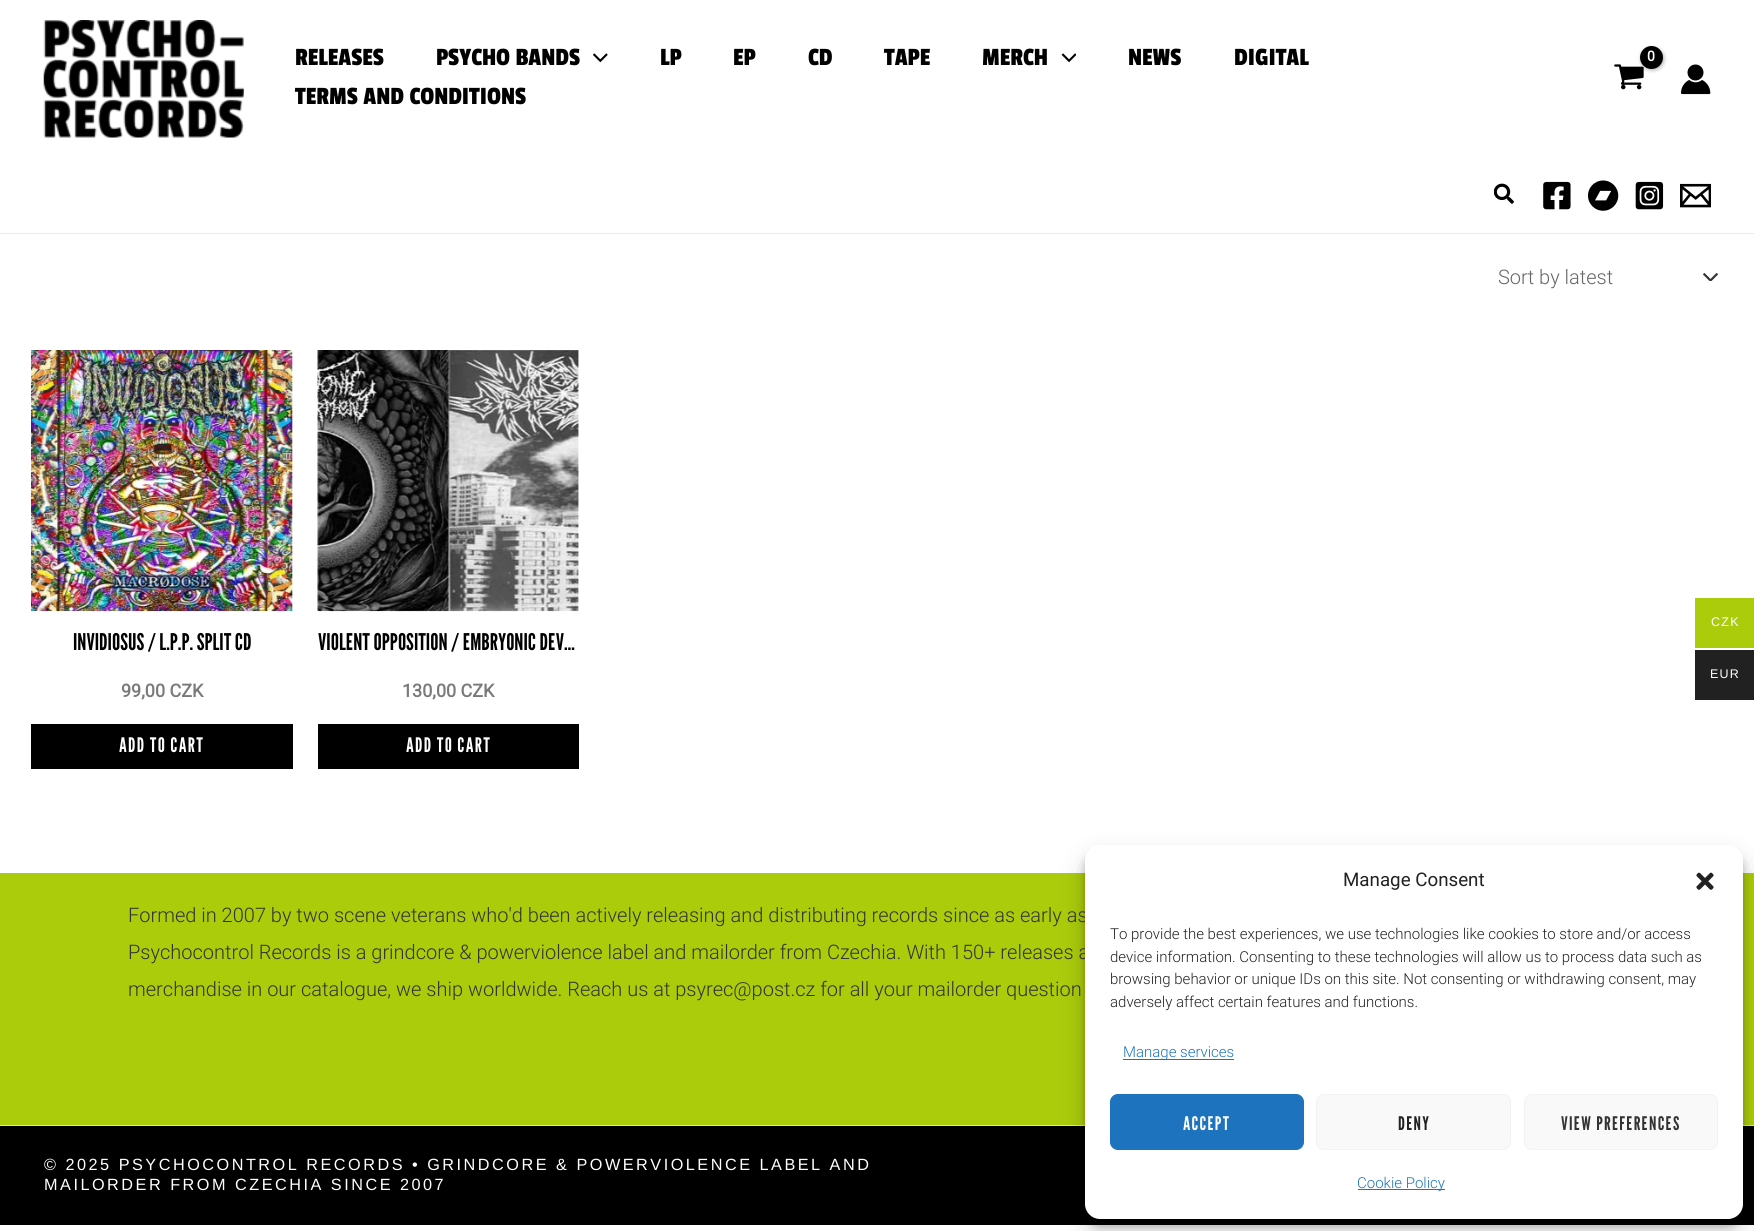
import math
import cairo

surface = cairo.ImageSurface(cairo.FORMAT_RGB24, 1754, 1231)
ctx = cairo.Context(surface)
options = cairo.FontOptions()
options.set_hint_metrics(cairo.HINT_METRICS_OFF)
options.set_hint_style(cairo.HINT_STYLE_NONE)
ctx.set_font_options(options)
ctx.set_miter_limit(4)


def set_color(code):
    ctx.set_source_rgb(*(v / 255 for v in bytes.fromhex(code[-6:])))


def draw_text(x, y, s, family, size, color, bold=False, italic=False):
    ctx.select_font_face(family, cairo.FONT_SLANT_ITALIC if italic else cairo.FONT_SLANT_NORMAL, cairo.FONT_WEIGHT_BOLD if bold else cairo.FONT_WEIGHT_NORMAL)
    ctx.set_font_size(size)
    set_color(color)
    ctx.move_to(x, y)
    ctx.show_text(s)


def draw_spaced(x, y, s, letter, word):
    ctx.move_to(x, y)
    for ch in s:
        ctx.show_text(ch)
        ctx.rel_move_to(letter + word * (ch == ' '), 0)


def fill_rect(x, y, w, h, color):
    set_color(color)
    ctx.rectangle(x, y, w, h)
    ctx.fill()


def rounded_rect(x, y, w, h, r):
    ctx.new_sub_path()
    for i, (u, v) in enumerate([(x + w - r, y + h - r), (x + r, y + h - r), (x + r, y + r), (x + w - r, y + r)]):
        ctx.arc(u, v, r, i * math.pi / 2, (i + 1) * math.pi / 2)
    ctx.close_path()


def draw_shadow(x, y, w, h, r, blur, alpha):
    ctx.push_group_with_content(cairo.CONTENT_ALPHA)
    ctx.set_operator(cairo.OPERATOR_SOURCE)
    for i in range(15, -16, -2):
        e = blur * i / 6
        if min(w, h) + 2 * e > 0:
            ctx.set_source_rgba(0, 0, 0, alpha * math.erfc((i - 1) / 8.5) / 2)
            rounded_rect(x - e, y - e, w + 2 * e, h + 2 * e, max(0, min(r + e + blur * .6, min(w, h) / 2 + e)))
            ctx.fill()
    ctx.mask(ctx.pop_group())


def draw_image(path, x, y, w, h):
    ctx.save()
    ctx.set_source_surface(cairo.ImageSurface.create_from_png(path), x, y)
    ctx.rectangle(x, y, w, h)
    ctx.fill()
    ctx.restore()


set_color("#ffffff")
ctx.paint()
draw_image("assets/img1.png", 43, 20, 201, 118)
draw_text(295, 65, "RELEASES", "Passion One", 26, "#000000")
draw_text(436, 65, "PSYCHO BANDS", "Passion One", 26, "#000000")
draw_image("assets/img2.png", 593, 53, 15, 10)
draw_text(660, 65, "LP", "Passion One", 26, "#000000")
draw_text(733, 65, "EP", "Passion One", 26, "#000000")
draw_text(808, 65, "CD", "Passion One", 26, "#000000")
draw_text(884, 65, "TAPE", "Passion One", 26, "#000000")
draw_text(982, 65, "MERCH", "Passion One", 26, "#000000")
draw_image("assets/img3.png", 1061, 53, 15, 10)
draw_text(1128, 65, "NEWS", "Passion One", 26, "#000000")
draw_text(1234, 65, "DIGITAL", "Passion One", 26, "#000000")
draw_text(295, 104, "TERMS AND CONDITIONS", "Passion One", 26, "#000000")
draw_image("assets/img4.png", 1614, 64, 30, 26)
set_color("#000000")
draw_shadow(1641, 48, 23, 22, 11, 2, 0.3)
set_color("#000000")
ctx.arc(1651.5, 57.5, 11.5, 0, 2 * math.pi)
ctx.fill()
ctx.select_font_face("Roboto", cairo.FONT_SLANT_NORMAL, cairo.FONT_WEIGHT_BOLD)
ctx.set_font_size(14)
set_color("#ffffff")
draw_spaced(1647, 61, "0", -1, 0)
draw_image("assets/img5.png", 1681, 64, 30, 31)
fill_rect(0, 233, 1754, 1, "#eaeaea")
draw_image("assets/img6.png", 1494, 183, 20, 21)
draw_image("assets/img7.png", 1543, 181, 28, 29)
draw_image("assets/img8.png", 1588, 180, 31, 31)
draw_image("assets/img9.png", 1635, 181, 29, 29)
draw_image("assets/img10.png", 1680, 183, 31, 25)
draw_image("assets/img11.png", 1703, 273, 15, 8)
draw_text(1498, 284, "Sort by latest", "Roboto Light", 20, "#666666")
draw_image("assets/img12.png", 31, 350, 262, 262)
draw_text(73, 650, "INVIDIOSUS / L.P.P. SPLIT CD", "League Gothic", 23, "#000000")
draw_text(121, 697, "99,00 CZK", "Roboto", 18, "#7a7a7a", bold=True)
fill_rect(31, 724, 262, 45, "#000000")
ctx.select_font_face("League Gothic")
ctx.set_font_size(20)
set_color("#ffffff")
draw_spaced(119, 752, "ADD TO CART", 1.25, 0)
draw_image("assets/img13.png", 317, 350, 262, 262)
draw_text(318, 650, "VIOLENT OPPOSITION / EMBRYONIC DEV…", "League Gothic", 23, "#000000")
draw_text(402, 697, "130,00 CZK", "Roboto", 18, "#7a7a7a", bold=True)
fill_rect(318, 724, 261, 45, "#000000")
ctx.select_font_face("League Gothic")
ctx.set_font_size(20)
set_color("#ffffff")
draw_spaced(406, 752, "ADD TO CART", 1.25, 0)
fill_rect(0, 873, 1754, 252, "#abcc0b")
draw_text(128, 922, "Formed in 2007 by two scene veterans who'd been actively releasing and distributing records since as early as", "Roboto Light", 20, "#333333")
draw_text(128, 959, "Psychocontrol Records is a grindcore & powerviolence label and mailorder from Czechia. With 150+ releases a", "Roboto Light", 20, "#333333")
draw_text(128, 996, "merchandise in our catalogue, we ship worldwide. Reach us at psyrec@post.cz for all your mailorder question", "Roboto Light", 20, "#333333")
fill_rect(0, 1126, 1754, 99, "#000000")
fill_rect(0, 1125, 1754, 1, "#dddddd")
ctx.select_font_face("Liberation Sans")
ctx.set_font_size(16.25)
set_color("#ffffff")
draw_spaced(44, 1170, "© 2025 PSYCHOCONTROL RECORDS • GRINDCORE & POWERVIOLENCE LABEL AND", 2.5, 0)
draw_spaced(44, 1190, "MAILORDER FROM CZECHIA SINCE 2007", 2.5, 0)
fill_rect(1695, 598, 59, 50, "#abcc0b")
ctx.set_font_size(12.5)
set_color("#ffffff")
draw_spaced(1711, 626, "CZK", 1.25, 0)
fill_rect(1695, 650, 59, 50, "#212121")
set_color("#ffffff")
draw_spaced(1710, 678, "EUR", 1.25, 0)
set_color("#000000")
draw_shadow(1085, 853, 658, 373, 15, 4, 0.23)
draw_shadow(1085, 858, 658, 373, 15, 12.5, 0.19)
set_color("#ffffff")
rounded_rect(1085, 845, 658, 374, 15)
ctx.fill()
draw_text(1343, 886, "Manage Consent", "Roboto", 18.75, "#222222")
draw_image("assets/img14.png", 1696, 872, 18, 18)
draw_text(1110, 939, "To provide the best experiences, we use technologies like cookies to store and/or access", "Roboto Light", 15, "#222222")
draw_text(1110, 962, "device information. Consenting to these technologies will allow us to process data such as", "Roboto Light", 15, "#222222")
draw_text(1110, 984, "browsing behavior or unique IDs on this site. Not consenting or withdrawing consent, may", "Roboto Light", 15, "#222222")
draw_text(1110, 1007, "adversely affect certain features and functions.", "Roboto Light", 15, "#222222")
fill_rect(1123, 1059, 111, 1, "#1e73be")
draw_text(1123, 1057, "Manage services", "Roboto Light", 15, "#1e73be")
rounded_rect(1110.5, 1094.5, 193, 55, 7.5)
ctx.fill_preserve()
ctx.set_line_width(1)
ctx.stroke()
ctx.select_font_face("League Gothic")
ctx.set_font_size(18.75)
set_color("#ffffff")
draw_spaced(1183, 1130, "ACCEPT", 1.25, 0)
set_color("#f9f9f9")
rounded_rect(1316.5, 1094.5, 194, 55, 7.5)
ctx.fill_preserve()
set_color("#f2f2f2")
ctx.stroke()
set_color("#222222")
draw_spaced(1398, 1130, "DENY", 1.25, 0)
set_color("#f9f9f9")
rounded_rect(1524.5, 1094.5, 193, 55, 7.5)
ctx.fill_preserve()
set_color("#f2f2f2")
ctx.stroke()
set_color("#333333")
draw_spaced(1561, 1130, "VIEW PREFERENCES", 1.25, 0)
fill_rect(1358, 1189, 87, 1, "#1e73be")
draw_text(1357, 1188, "Cookie Policy", "Roboto Light", 15, "#1e73be")
surface.write_to_png("output.png")
